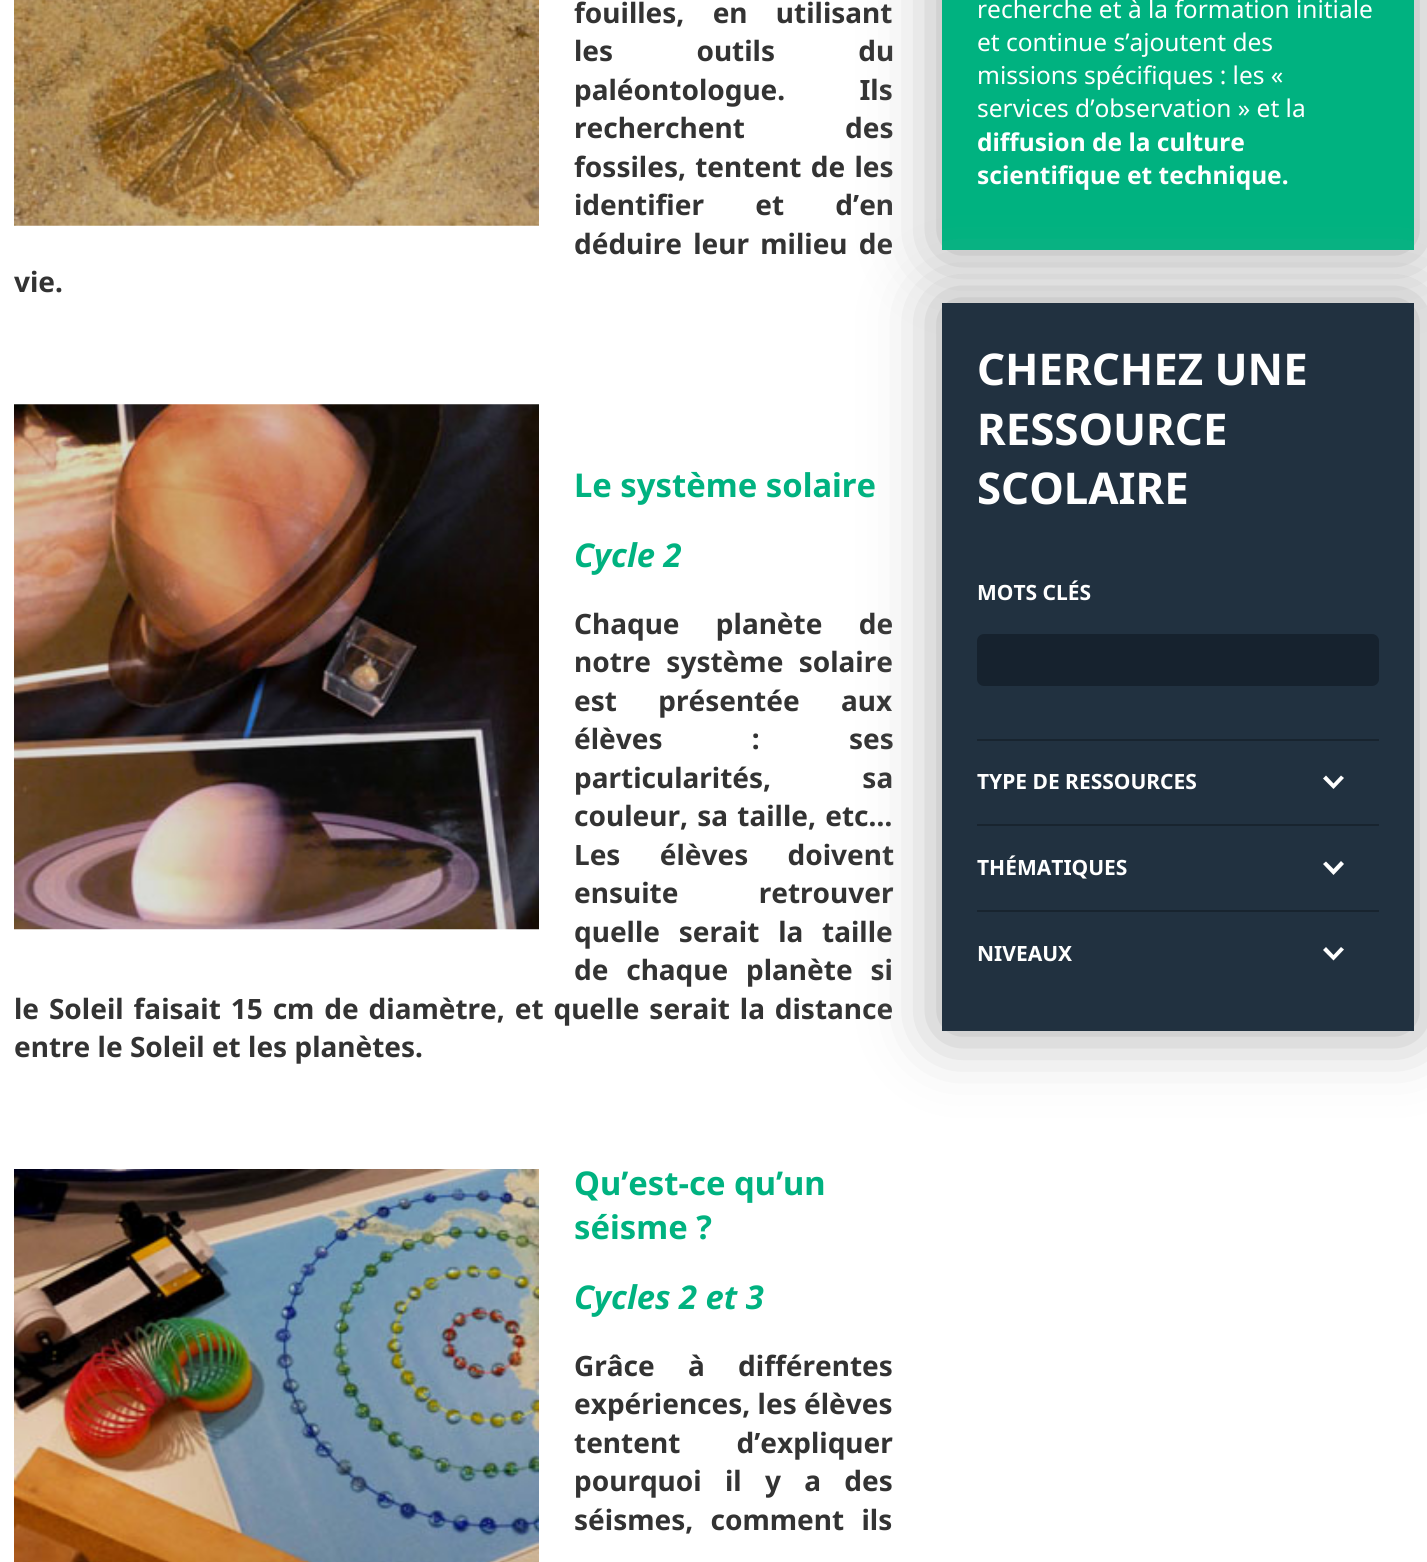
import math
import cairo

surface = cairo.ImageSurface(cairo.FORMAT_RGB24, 1427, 1562)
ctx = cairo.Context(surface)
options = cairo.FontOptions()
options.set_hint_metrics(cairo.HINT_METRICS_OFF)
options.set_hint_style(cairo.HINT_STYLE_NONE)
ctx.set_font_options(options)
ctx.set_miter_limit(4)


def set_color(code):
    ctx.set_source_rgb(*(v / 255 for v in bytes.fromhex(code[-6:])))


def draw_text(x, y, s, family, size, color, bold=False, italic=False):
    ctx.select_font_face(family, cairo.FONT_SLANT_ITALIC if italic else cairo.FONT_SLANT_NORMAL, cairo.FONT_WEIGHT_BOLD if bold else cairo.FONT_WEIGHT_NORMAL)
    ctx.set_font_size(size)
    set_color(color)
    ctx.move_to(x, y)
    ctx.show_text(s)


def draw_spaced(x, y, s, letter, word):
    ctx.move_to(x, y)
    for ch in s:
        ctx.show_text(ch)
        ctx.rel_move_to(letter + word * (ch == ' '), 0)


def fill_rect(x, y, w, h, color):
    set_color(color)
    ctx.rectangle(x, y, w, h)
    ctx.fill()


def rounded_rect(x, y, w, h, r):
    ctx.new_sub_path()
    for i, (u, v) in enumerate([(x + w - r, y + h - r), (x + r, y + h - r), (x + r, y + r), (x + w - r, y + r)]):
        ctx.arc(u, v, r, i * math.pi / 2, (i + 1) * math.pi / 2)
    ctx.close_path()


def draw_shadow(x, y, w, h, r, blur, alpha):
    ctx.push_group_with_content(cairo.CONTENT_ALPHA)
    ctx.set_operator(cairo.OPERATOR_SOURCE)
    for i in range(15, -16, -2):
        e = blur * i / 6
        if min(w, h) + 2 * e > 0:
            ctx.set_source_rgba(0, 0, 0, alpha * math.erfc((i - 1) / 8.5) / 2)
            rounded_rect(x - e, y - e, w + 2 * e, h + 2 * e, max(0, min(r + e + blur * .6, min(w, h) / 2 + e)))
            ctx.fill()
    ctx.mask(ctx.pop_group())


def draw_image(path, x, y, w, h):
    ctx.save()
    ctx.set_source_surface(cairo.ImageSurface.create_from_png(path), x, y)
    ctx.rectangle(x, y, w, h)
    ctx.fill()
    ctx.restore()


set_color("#ffffff")
ctx.paint()
draw_image("assets/img1.png", 14, 0, 525, 226)
ctx.select_font_face("Noto Sans", cairo.FONT_SLANT_NORMAL, cairo.FONT_WEIGHT_BOLD)
ctx.set_font_size(28)
set_color("#333333")
draw_spaced(574, 23, "fouilles, en utilisant", 0, 21)
draw_spaced(574, 61, "les outils du", 0, 76)
draw_spaced(574, 100, "paléontologue. Ils", 0, 67)
draw_spaced(574, 138, "recherchent des", 0, 93)
draw_spaced(574, 177, "fossiles, tentent de les", 0, 2)
draw_spaced(574, 215, "identifier et d’en", 0, 44)
draw_spaced(574, 254, "déduire leur milieu de", 0, 4)
draw_text(14, 292, "vie.", "Noto Sans", 28, "#333333", bold=True)
draw_image("assets/img2.png", 14, 404, 525, 526)
draw_text(574, 497, "Le système solaire", "Noto Sans", 32.75, "#00b280", bold=True)
draw_text(574, 567, "Cycle 2", "Noto Sans", 32.75, "#00b280", bold=True, italic=True)
ctx.select_font_face("Noto Sans", cairo.FONT_SLANT_NORMAL, cairo.FONT_WEIGHT_BOLD)
ctx.set_font_size(28)
set_color("#333333")
draw_spaced(574, 634, "Chaque planète de", 0, 29)
draw_spaced(574, 672, "notre système solaire", 0, 8)
draw_spaced(574, 711, "est présentée aux", 0, 34)
draw_spaced(574, 749, "élèves : ses", 0, 82)
draw_spaced(574, 788, "particularités, sa", 0, 84)
draw_spaced(574, 826, "couleur, sa taille, etc…", 0, 2)
draw_spaced(574, 865, "Les élèves doivent", 0, 32)
draw_spaced(574, 903, "ensuite retrouver", 0, 73)
draw_spaced(574, 942, "quelle serait la taille", 0, 11.5)
draw_spaced(574, 980, "de chaque planète si", 0, 10.5)
draw_spaced(14, 1019, "le Soleil faisait 15 cm de diamètre, et quelle serait la distance", 0, 2.6)
draw_text(14, 1057, "entre le Soleil et les planètes.", "Noto Sans", 28, "#333333", bold=True)
draw_image("assets/img3.png", 14, 1169, 525, 393)
draw_text(574, 1195, "Qu’est-ce qu’un", "Noto Sans", 32.75, "#00b280", bold=True)
draw_text(574, 1239, "séisme ?", "Noto Sans", 32.75, "#00b280", bold=True)
draw_text(574, 1309, "Cycles 2 et 3", "Noto Sans", 32.75, "#00b280", bold=True, italic=True)
ctx.select_font_face("Noto Sans", cairo.FONT_SLANT_NORMAL, cairo.FONT_WEIGHT_BOLD)
ctx.set_font_size(28)
set_color("#333333")
draw_spaced(574, 1376, "Grâce à différentes", 0, 26)
draw_text(574, 1414, "expériences, les élèves", "Noto Sans", 28, "#333333", bold=True)
draw_spaced(574, 1453, "tentent d’expliquer", 0, 49)
draw_spaced(574, 1491, "pourquoi il y a des", 0, 16)
draw_spaced(574, 1530, "séismes, comment ils", 0, 10)
set_color("#a6a6a6")
draw_shadow(942, -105, 472, 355, 0, 35, 1)
fill_rect(942, 0, 472, 250, "#00b280")
draw_text(977, 18, "recherche et à la formation initiale", "Noto Sans", 24.5, "#ffffff")
draw_text(977, 51, "et continue s’ajoutent des", "Noto Sans", 24.5, "#ffffff")
draw_text(977, 84, "missions spécifiques : les «", "Noto Sans", 24.5, "#ffffff")
draw_text(977, 117, "services d’observation » et la", "Noto Sans", 24.5, "#ffffff")
draw_text(977, 151, "diffusion de la culture", "Noto Sans", 24.5, "#ffffff", bold=True)
draw_text(977, 184, "scientifique et technique.", "Noto Sans", 24.5, "#ffffff", bold=True)
set_color("#a6a6a6")
draw_shadow(942, 303, 472, 728, 0, 35, 1)
fill_rect(942, 303, 472, 728, "#213140")
draw_text(977, 385, "CHERCHEZ UNE", "Noto Sans", 43.75, "#ffffff", bold=True)
draw_text(977, 445, "RESSOURCE", "Noto Sans", 43.75, "#ffffff", bold=True)
draw_text(977, 504, "SCOLAIRE", "Noto Sans", 43.75, "#ffffff", bold=True)
draw_text(977, 600, "MOTS CLÉS", "Noto Sans", 21, "#ffffff", bold=True)
set_color("#16222e")
rounded_rect(977, 634, 402, 52, 7)
ctx.fill()
fill_rect(977, 739, 402, 2, "#18242f")
draw_text(977, 789, "TYPE DE RESSOURCES", "Noto Sans", 21, "#ffffff", bold=True)
ctx.new_path()
ctx.move_to(1333.5, 789)
ctx.line_to(1323, 778.5)
ctx.line_to(1326, 775.5)
ctx.line_to(1333.5, 783.5)
ctx.line_to(1341, 775.5)
ctx.line_to(1344, 778)
ctx.close_path()
ctx.fill()
fill_rect(977, 824, 402, 2, "#18242f")
draw_text(977, 875, "THÉMATIQUES", "Noto Sans", 21, "#ffffff", bold=True)
ctx.new_path()
ctx.move_to(1333.5, 875)
ctx.line_to(1323, 864)
ctx.line_to(1326, 861.5)
ctx.line_to(1333.5, 869)
ctx.line_to(1341, 861)
ctx.line_to(1344, 864)
ctx.close_path()
ctx.fill()
fill_rect(977, 910, 402, 2, "#18242f")
draw_text(977, 961, "NIVEAUX", "Noto Sans", 21, "#ffffff", bold=True)
ctx.new_path()
ctx.move_to(1333.5, 960.5)
ctx.line_to(1323, 950)
ctx.line_to(1326, 947)
ctx.line_to(1333.5, 955)
ctx.line_to(1341, 947)
ctx.line_to(1344, 949.5)
ctx.close_path()
ctx.fill()
surface.write_to_png("output.png")
